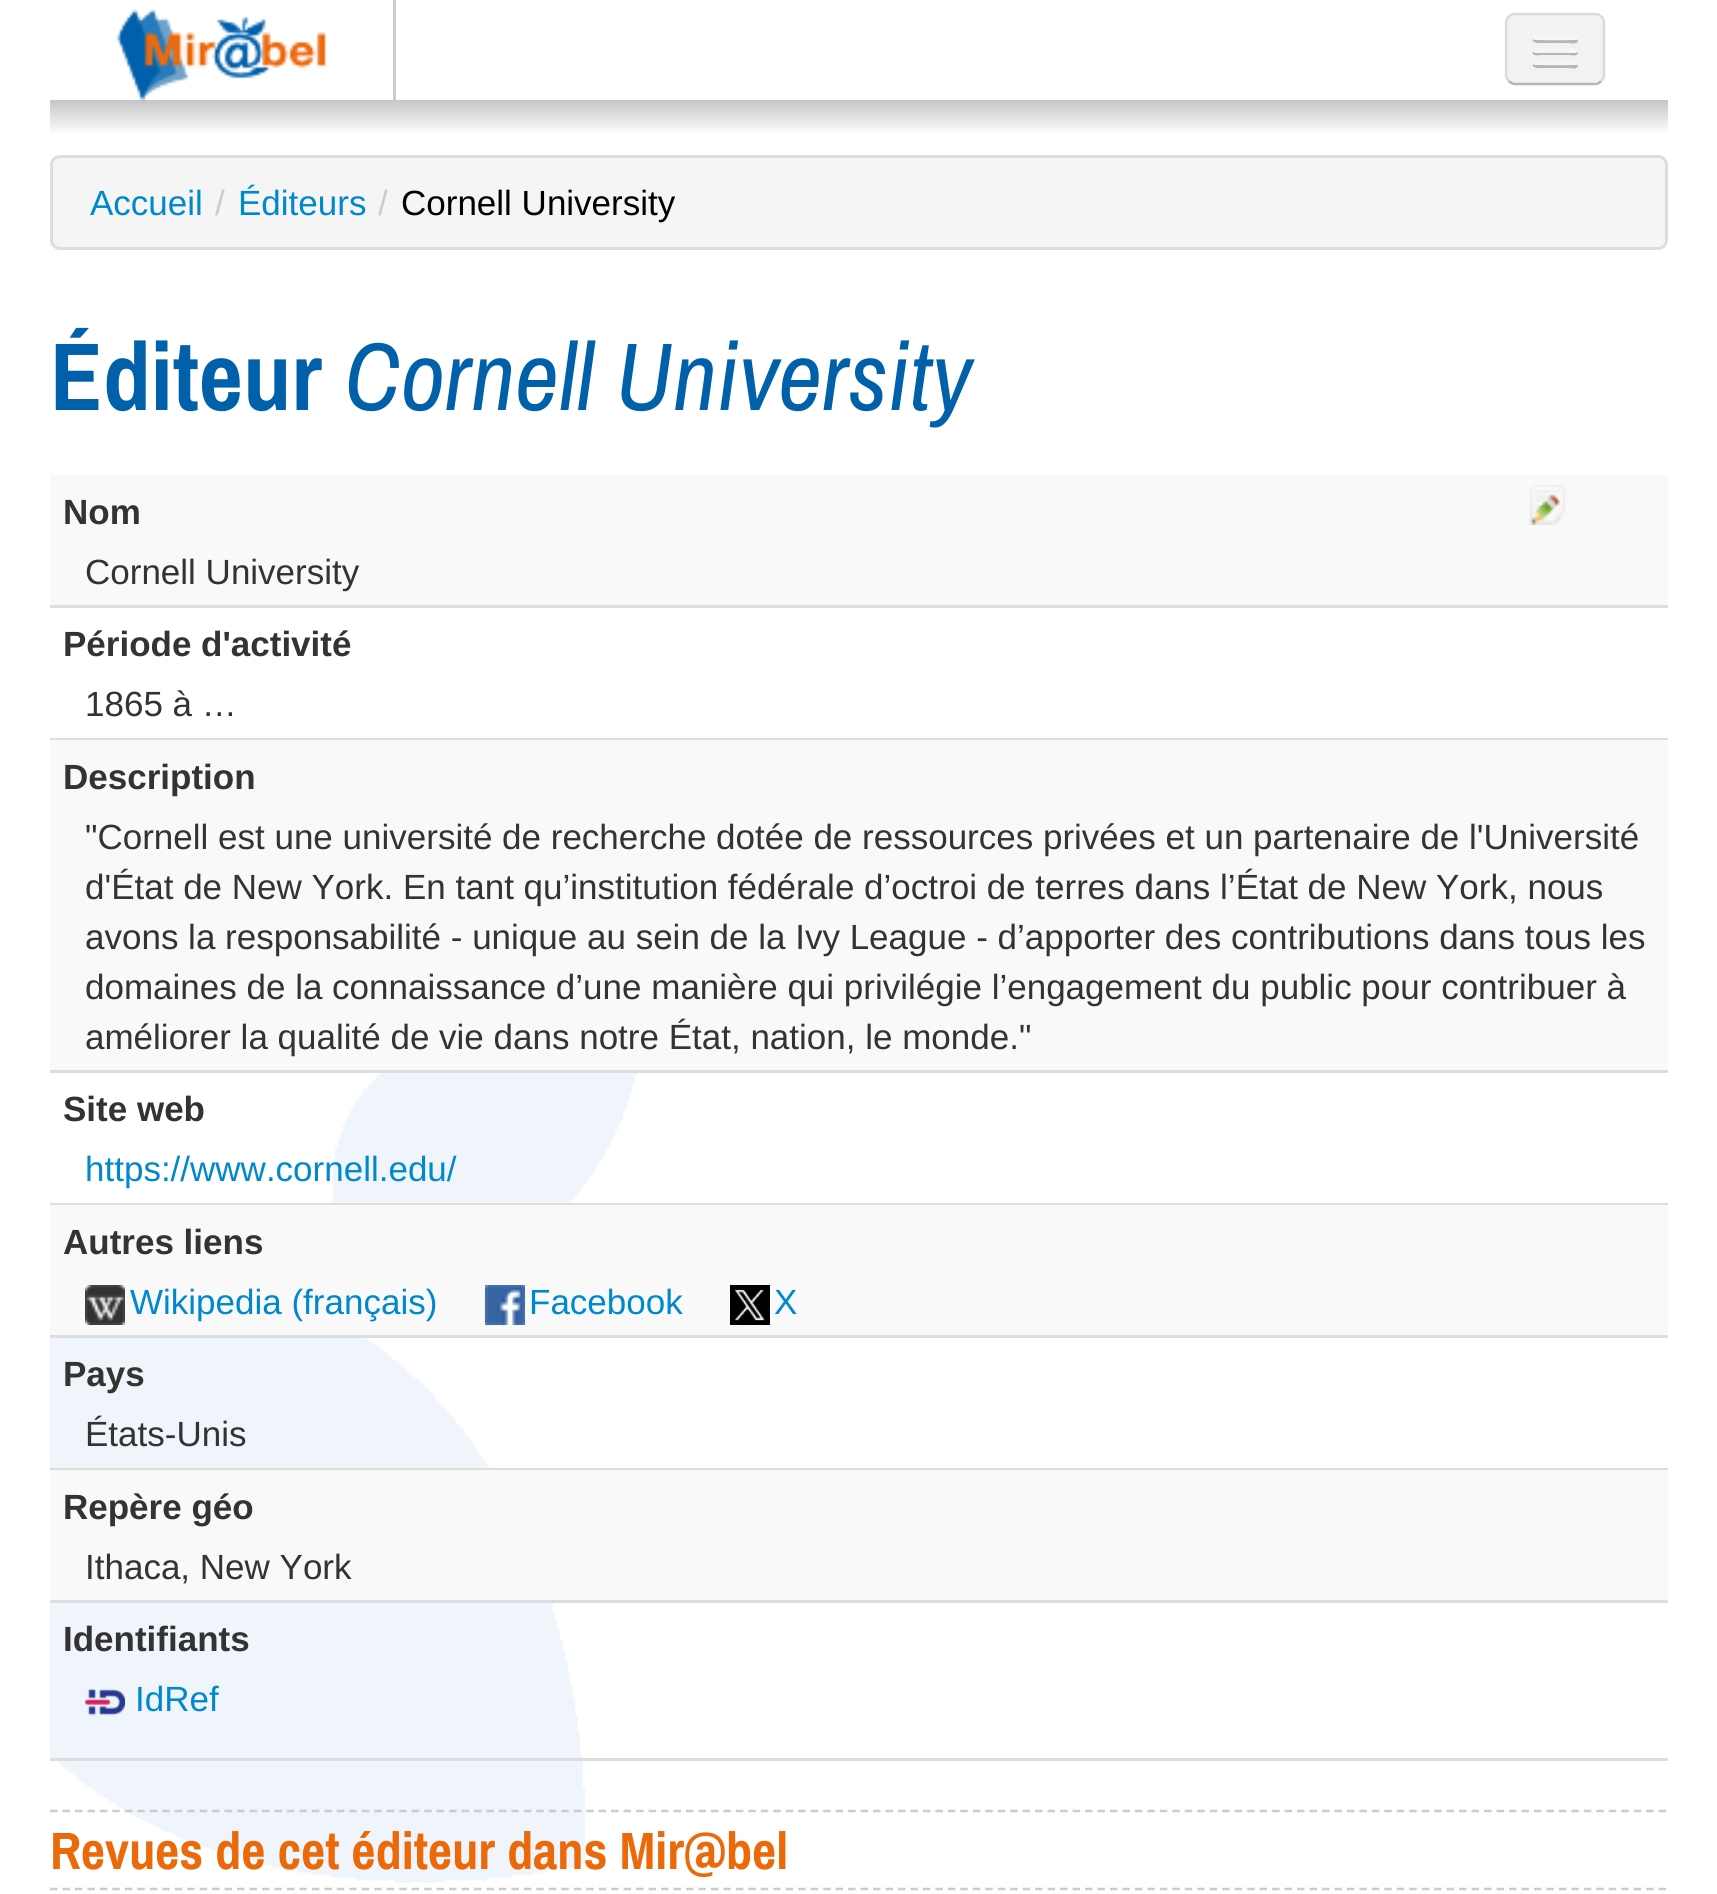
import math
import cairo

surface = cairo.ImageSurface(cairo.FORMAT_RGB24, 1717, 1894)
ctx = cairo.Context(surface)
options = cairo.FontOptions()
options.set_hint_metrics(cairo.HINT_METRICS_OFF)
options.set_hint_style(cairo.HINT_STYLE_NONE)
ctx.set_font_options(options)
ctx.set_miter_limit(4)


def set_color(code):
    ctx.set_source_rgb(*(v / 255 for v in bytes.fromhex(code[-6:])))


def draw_text(x, y, s, family, size, color, bold=False, italic=False):
    ctx.select_font_face(family, cairo.FONT_SLANT_ITALIC if italic else cairo.FONT_SLANT_NORMAL, cairo.FONT_WEIGHT_BOLD if bold else cairo.FONT_WEIGHT_NORMAL)
    ctx.set_font_size(size)
    set_color(color)
    ctx.move_to(x, y)
    ctx.show_text(s)


def fill_rect(x, y, w, h, color):
    set_color(color)
    ctx.rectangle(x, y, w, h)
    ctx.fill()


def rounded_rect(x, y, w, h, r):
    ctx.new_sub_path()
    for i, (u, v) in enumerate([(x + w - r, y + h - r), (x + r, y + h - r), (x + r, y + r), (x + w - r, y + r)]):
        ctx.arc(u, v, r, i * math.pi / 2, (i + 1) * math.pi / 2)
    ctx.close_path()


def draw_image(path, x, y, w, h):
    ctx.save()
    ctx.set_source_surface(cairo.ImageSurface.create_from_png(path), x, y)
    ctx.rectangle(x, y, w, h)
    ctx.fill()
    ctx.restore()


set_color("#ffffff")
ctx.paint()
fill_rect(393, 0, 3, 100, "#cccccc")
gradient = cairo.LinearGradient(859, 100, 859, 135)
gradient.add_color_stop_rgba(0, 0.776, 0.776, 0.776, 1)
gradient.add_color_stop_rgba(1, 1, 1, 1, 1)
ctx.set_source(gradient)
ctx.rectangle(50, 100, 1618, 33)
ctx.fill()
draw_image("assets/img1.png", 116, 9, 210, 93)
set_color("#f2f2f2")
rounded_rect(1505, 13, 100, 72, 10)
ctx.fill()
ctx.save()
rounded_rect(1505, 13, 100, 72, 10)
ctx.clip()
fill_rect(1505, 15, 100, 68, "#f2f2f2")
ctx.restore()
ctx.new_path()
ctx.move_to(1601, 81)
ctx.curve_to(1599.5, 83, 1597.5, 84, 1595, 84)
ctx.line_to(1515, 84)
ctx.curve_to(1512.5, 84, 1510.5, 83, 1509, 81)
ctx.set_source_rgba(0, 0, 0, 0.25)
ctx.set_line_width(2.5)
ctx.stroke()
ctx.new_path()
ctx.move_to(1509, 81)
ctx.curve_to(1507, 79.5, 1506, 77.5, 1506, 75)
ctx.line_to(1506, 22.5)
ctx.curve_to(1506, 20, 1507, 18, 1509, 16.5)
ctx.curve_to(1510.5, 14.5, 1512.5, 14, 1515, 14)
ctx.line_to(1595, 14)
ctx.curve_to(1597.5, 14, 1599.5, 14.5, 1601, 16.5)
ctx.curve_to(1603, 18, 1604, 20, 1604, 22.5)
ctx.line_to(1604, 75)
ctx.curve_to(1604, 77.5, 1603, 79.5, 1601, 81)
ctx.set_source_rgba(0, 0, 0, 0.1)
ctx.stroke()
set_color("#b6b6b6")
ctx.new_path()
ctx.move_to(1533, 39)
ctx.curve_to(1531, 44, 1542, 43, 1542, 43)
ctx.line_to(1569, 43)
ctx.curve_to(1570, 43, 1577, 45, 1578, 41)
ctx.line_to(1577, 39)
ctx.line_to(1575, 40)
ctx.curve_to(1572, 40, 1535, 41, 1533, 39)
ctx.close_path()
ctx.fill()
set_color("#f5f5f5")
rounded_rect(1533, 35, 45, 5, 2.5)
ctx.fill()
set_color("#b6b6b6")
ctx.new_path()
ctx.move_to(1533, 52)
ctx.curve_to(1531, 57, 1541, 55, 1542, 55)
ctx.line_to(1569, 55)
ctx.curve_to(1570, 55, 1577, 57, 1578, 53)
ctx.line_to(1577, 51)
ctx.line_to(1575, 52)
ctx.line_to(1535, 52)
ctx.close_path()
ctx.fill()
set_color("#f5f5f5")
rounded_rect(1533, 48, 45, 5, 2.5)
ctx.fill()
set_color("#b6b6b6")
ctx.new_path()
ctx.move_to(1533, 64)
ctx.curve_to(1531, 69, 1542, 68, 1542, 68)
ctx.line_to(1569, 68)
ctx.curve_to(1570, 68, 1577, 70, 1578, 66)
ctx.line_to(1577, 64)
ctx.line_to(1575, 65)
ctx.curve_to(1572, 65, 1535, 66, 1533, 64)
ctx.close_path()
ctx.fill()
set_color("#f5f5f5")
rounded_rect(1533, 60, 45, 5, 2.5)
ctx.fill()
draw_image("assets/img2.png", 50, 1073, 588, 810)
rounded_rect(51.5, 156.5, 1615, 92, 8.5)
ctx.fill_preserve()
set_color("#dddddd")
ctx.set_line_width(3)
ctx.stroke()
draw_text(90, 215, "Accueil", "Liberation Sans", 35, "#0088cc")
draw_text(215, 215, "/", "Liberation Sans", 35, "#cccccc")
draw_text(238, 215, "Éditeurs", "Liberation Sans", 35, "#0088cc")
draw_text(378, 215, "/", "Liberation Sans", 35, "#cccccc")
draw_text(401, 215, "Cornell University", "Liberation Sans", 35, "#000000")
draw_text(50, 410, "Éditeur", "Archivo Narrow", 96.25, "#0060a9", bold=True)
draw_text(344, 410, "Cornell University", "Archivo Narrow", 96.25, "#0060a9", italic=True)
fill_rect(50, 475, 1618, 130, "#f9f9f9")
draw_image("assets/img3.png", 1529, 485, 37, 40)
fill_rect(50, 605, 1618, 3, "#dddddd")
draw_text(63, 524, "Nom", "Liberation Sans", 35, "#333333", bold=True)
draw_text(85, 584, "Cornell University", "Liberation Sans", 35, "#333333")
fill_rect(50, 738, 1618, 2, "#dddddd")
draw_text(63, 656, "Période d'activité", "Liberation Sans", 35, "#333333", bold=True)
draw_text(85, 716, "1865 à …", "Liberation Sans", 35, "#333333")
fill_rect(50, 1070, 1618, 3, "#dddddd")
fill_rect(50, 740, 1618, 330, "#f9f9f9")
draw_text(63, 789, "Description", "Liberation Sans", 35, "#333333", bold=True)
draw_text(85, 849, "\"Cornell est une université de recherche dotée de ressources privées et un partenaire de l'Université", "Liberation Sans", 35, "#333333")
draw_text(85, 899, "d'État de New York. En tant qu’institution fédérale d’octroi de terres dans l’État de New York, nous", "Liberation Sans", 35, "#333333")
draw_text(85, 949, "avons la responsabilité - unique au sein de la Ivy League - d’apporter des contributions dans tous les", "Liberation Sans", 35, "#333333")
draw_text(85, 999, "domaines de la connaissance d’une manière qui privilégie l’engagement du public pour contribuer à", "Liberation Sans", 35, "#333333")
draw_text(85, 1049, "améliorer la qualité de vie dans notre État, nation, le monde.\"", "Liberation Sans", 35, "#333333")
fill_rect(50, 1203, 1618, 2, "#dddddd")
draw_text(63, 1121, "Site web", "Liberation Sans", 35, "#333333", bold=True)
draw_text(85, 1181, "https://www.cornell.edu/", "Liberation Sans", 35, "#0088cc")
fill_rect(50, 1335, 1618, 3, "#dddddd")
fill_rect(50, 1205, 1618, 130, "#f9f9f9")
draw_text(63, 1254, "Autres liens", "Liberation Sans", 35, "#333333", bold=True)
draw_image("assets/img4.png", 85, 1285, 40, 40)
draw_text(130, 1314, "Wikipedia (français)", "Liberation Sans", 35, "#0088cc")
draw_image("assets/img5.png", 485, 1285, 40, 40)
draw_text(529, 1314, "Facebook", "Liberation Sans", 35, "#0088cc")
draw_image("assets/img6.png", 730, 1285, 40, 40)
draw_text(774, 1314, "X", "Liberation Sans", 35, "#0088cc")
fill_rect(50, 1468, 1618, 2, "#dddddd")
draw_text(63, 1386, "Pays", "Liberation Sans", 35, "#333333", bold=True)
draw_text(85, 1446, "États-Unis", "Liberation Sans", 35, "#333333")
fill_rect(50, 1600, 1618, 3, "#dddddd")
fill_rect(50, 1470, 1618, 130, "#f9f9f9")
draw_text(63, 1519, "Repère géo", "Liberation Sans", 35, "#333333", bold=True)
draw_text(85, 1579, "Ithaca, New York", "Liberation Sans", 35, "#333333")
fill_rect(50, 1758, 1618, 3, "#dddddd")
draw_text(63, 1651, "Identifiants", "Liberation Sans", 35, "#333333", bold=True)
draw_image("assets/img7.png", 85, 1688, 40, 28)
draw_text(135, 1711, "IdRef", "Liberation Sans", 35, "#0088cc")
ctx.new_path()
ctx.move_to(50, 1811)
ctx.line_to(1667.5, 1811)
set_color("#cccccc")
ctx.set_line_width(2.5)
ctx.set_dash([7.5, 4.97])
ctx.stroke()
ctx.new_path()
ctx.move_to(50, 1889)
ctx.line_to(1667.5, 1889)
ctx.stroke()
draw_text(50, 1869, "Revues de cet éditeur dans Mir@bel", "Archivo Narrow", 52.5, "#eb6909", bold=True)
surface.write_to_png("output.png")
